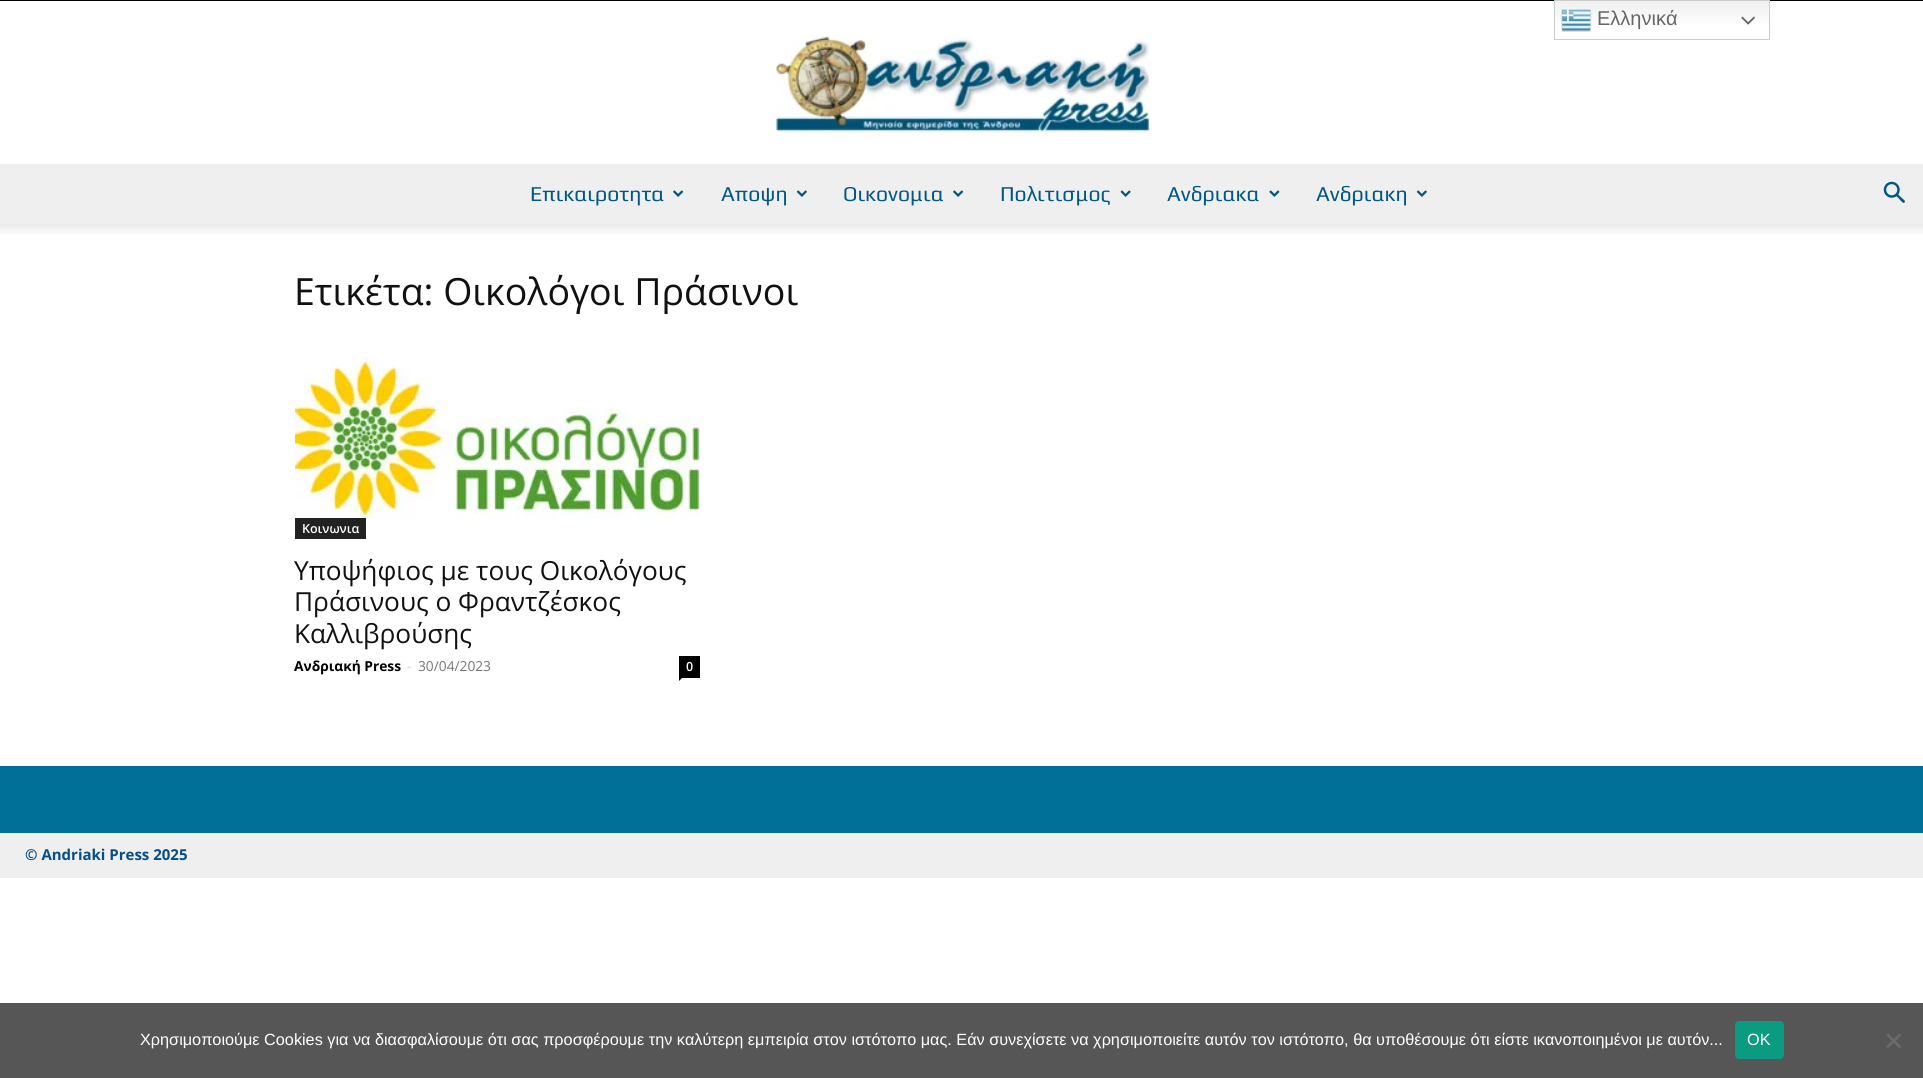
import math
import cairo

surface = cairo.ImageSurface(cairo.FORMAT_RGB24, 1923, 1078)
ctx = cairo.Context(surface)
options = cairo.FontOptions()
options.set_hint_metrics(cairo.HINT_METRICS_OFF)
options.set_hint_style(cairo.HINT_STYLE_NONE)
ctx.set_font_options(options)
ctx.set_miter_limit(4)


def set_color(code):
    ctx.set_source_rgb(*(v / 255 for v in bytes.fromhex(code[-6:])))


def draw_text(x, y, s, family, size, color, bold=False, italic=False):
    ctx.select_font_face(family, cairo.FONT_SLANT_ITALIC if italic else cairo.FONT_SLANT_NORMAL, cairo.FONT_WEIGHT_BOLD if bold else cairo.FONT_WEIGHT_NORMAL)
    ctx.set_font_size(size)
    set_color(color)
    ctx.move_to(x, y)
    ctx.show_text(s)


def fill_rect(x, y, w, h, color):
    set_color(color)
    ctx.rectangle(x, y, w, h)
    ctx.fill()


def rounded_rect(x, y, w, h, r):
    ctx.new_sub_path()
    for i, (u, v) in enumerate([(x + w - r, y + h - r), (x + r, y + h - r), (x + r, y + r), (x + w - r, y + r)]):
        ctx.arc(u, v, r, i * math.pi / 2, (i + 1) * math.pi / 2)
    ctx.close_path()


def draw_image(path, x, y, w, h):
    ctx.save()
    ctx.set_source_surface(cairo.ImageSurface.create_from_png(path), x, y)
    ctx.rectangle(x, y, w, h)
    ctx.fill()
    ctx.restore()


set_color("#ffffff")
ctx.paint()
gradient = cairo.LinearGradient(1662, 0, 1662, 40)
gradient.add_color_stop_rgba(0, 0.937, 0.937, 0.937, 1)
gradient.add_color_stop_rgba(0.7, 1, 1, 1, 1)
ctx.set_source(gradient)
ctx.rectangle(1555, 1, 214, 23)
ctx.fill()
fill_rect(0, 0, 1923, 1, "#000000")
ctx.rectangle(1554.5, 0.5, 215, 39)
set_color("#cccccc")
ctx.set_line_width(1)
ctx.stroke()
draw_image("assets/img1.png", 1561, 9, 31, 23)
draw_text(1597, 25, "Ελληνικά", "Liberation Sans", 20, "#666666")
draw_image("assets/img2.png", 1741, 16, 14, 9)
draw_image("assets/img3.png", 775, 35, 375, 98)
fill_rect(0, 164, 1923, 60, "#efefef")
draw_text(530, 201, "Επικαιροτητα", "Play", 21.25, "#005782")
draw_image("assets/img4.png", 673, 190, 11, 7)
draw_text(721, 201, "Αποψη", "Play", 21.25, "#005782")
draw_image("assets/img5.png", 796, 190, 11, 7)
draw_text(843, 201, "Οικονομια", "Play", 21.25, "#005782")
draw_image("assets/img4.png", 953, 190, 11, 7)
draw_text(1000, 201, "Πολιτισμος", "Play", 21.25, "#005782")
draw_image("assets/img6.png", 1120, 190, 11, 7)
draw_text(1167, 201, "Ανδριακα", "Play", 21.25, "#005782")
draw_image("assets/img7.png", 1269, 190, 11, 7)
draw_text(1316, 201, "Ανδριακη", "Play", 21.25, "#005782")
draw_image("assets/img5.png", 1416, 190, 11, 7)
draw_image("assets/img8.png", 1883, 181, 22, 22)
draw_image("assets/img9.png", 0, 224, 1923, 10)
draw_text(294, 305, "Ετικέτα: Οικολόγοι Πράσινοι", "Open Sans", 37.5, "#111111")
draw_image("assets/img10.png", 295, 358, 405, 161)
fill_rect(295, 518, 71, 21, "#222222")
draw_text(302, 533, "Κοινωνια", "Open Sans SemiBold", 12.5, "#ffffff")
draw_text(294, 580, "Υποψήφιος με τους Οικολόγους", "Open Sans", 26.25, "#111111")
draw_text(294, 611, "Πράσινους ο Φραντζέσκος", "Open Sans", 26.25, "#111111")
draw_text(294, 643, "Καλλιβρούσης", "Open Sans", 26.25, "#111111")
draw_text(294, 671, "Ανδριακή Press", "Open Sans", 13.75, "#000000", bold=True)
draw_text(407, 671, "-", "Open Sans", 13.75, "#cccccc")
draw_text(418, 671, "30/04/2023", "Open Sans", 13.75, "#767676")
fill_rect(679, 656, 21, 22, "#000000")
draw_text(686, 671, "0", "Open Sans SemiBold", 12.5, "#ffffff")
set_color("#000000")
ctx.new_path()
ctx.move_to(679, 677.5)
ctx.line_to(682.5, 677.5)
ctx.line_to(679, 681)
ctx.close_path()
ctx.fill()
fill_rect(0, 766, 1923, 67, "#007099")
fill_rect(0, 833, 1923, 45, "#efefef")
draw_text(25, 860, "© Andriaki Press 2025", "Open Sans", 15, "#054e87", bold=True)
fill_rect(0, 1003, 1923, 75, "#565656")
draw_text(140, 1045, "Χρησιμοποιούμε Cookies για να διασφαλίσουμε ότι σας προσφέρουμε την καλύτερη εμπειρία στον ιστότοπο μας. Εάν συνεχίσετε να χρησιμοποιείτε αυτόν τον ιστότοπο, θα υποθέσουμε ότι είστε ικανοποιημένοι με αυτόν...", "Liberation Sans", 16.25, "#ffffff")
set_color("#0a9b81")
rounded_rect(1735, 1021, 49, 38, 4)
ctx.fill()
draw_text(1747, 1045, "OK", "Liberation Sans", 16.25, "#ffffff")
set_color("#6b6b6b")
ctx.new_path()
ctx.move_to(1899.5, 1033.5)
ctx.line_to(1901.5, 1035)
ctx.line_to(1888, 1048.5)
ctx.line_to(1886, 1046.5)
ctx.close_path()
ctx.fill()
ctx.new_path()
ctx.move_to(1886, 1035)
ctx.line_to(1888, 1033.5)
ctx.line_to(1901.5, 1046.5)
ctx.line_to(1899.5, 1048.5)
ctx.close_path()
ctx.fill()
surface.write_to_png("output.png")
